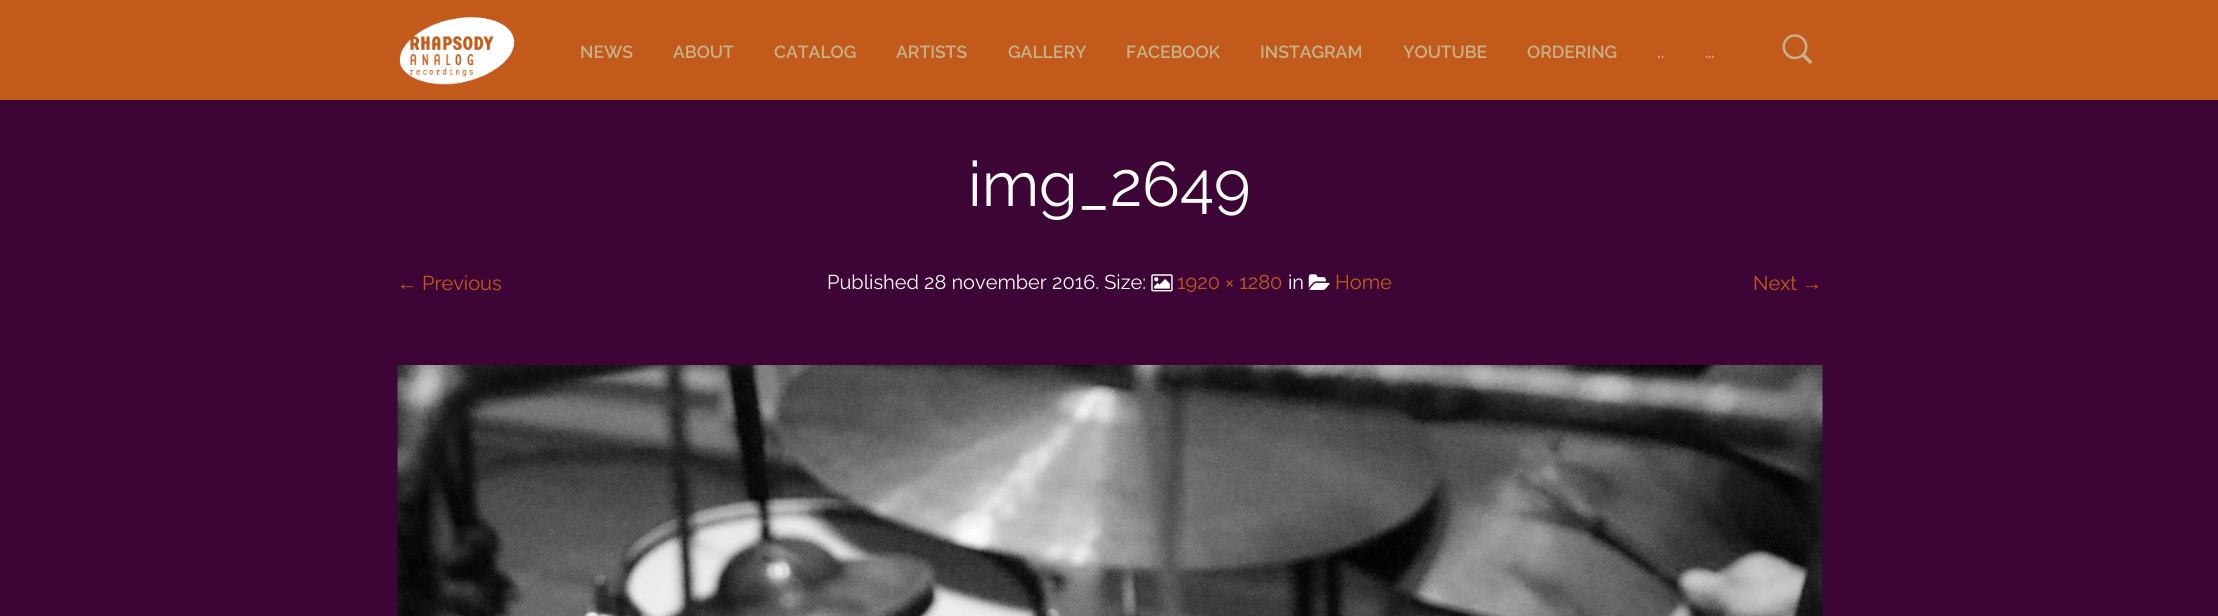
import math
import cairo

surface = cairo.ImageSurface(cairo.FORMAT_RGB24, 2218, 616)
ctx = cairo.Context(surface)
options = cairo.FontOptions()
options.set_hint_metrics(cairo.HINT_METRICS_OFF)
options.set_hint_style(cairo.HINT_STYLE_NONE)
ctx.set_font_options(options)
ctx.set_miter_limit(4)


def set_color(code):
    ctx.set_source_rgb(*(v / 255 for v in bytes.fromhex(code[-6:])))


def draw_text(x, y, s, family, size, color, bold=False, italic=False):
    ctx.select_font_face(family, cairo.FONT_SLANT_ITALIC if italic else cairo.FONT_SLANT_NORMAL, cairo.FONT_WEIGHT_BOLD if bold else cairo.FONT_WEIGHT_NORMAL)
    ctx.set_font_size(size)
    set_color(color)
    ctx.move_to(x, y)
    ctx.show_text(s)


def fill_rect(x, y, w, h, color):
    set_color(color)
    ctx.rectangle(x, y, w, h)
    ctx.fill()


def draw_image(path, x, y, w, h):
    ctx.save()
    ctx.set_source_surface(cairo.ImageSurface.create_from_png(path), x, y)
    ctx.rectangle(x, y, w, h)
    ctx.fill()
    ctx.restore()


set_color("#3d0436")
ctx.paint()
fill_rect(0, 0, 2218, 100, "#c25a1b")
draw_image("assets/img1.png", 399, 17, 116, 68)
draw_text(580, 58, "NEWS", "Raleway SemiBold", 17.5, "#c7b18b")
draw_text(673, 58, "ABOUT", "Raleway SemiBold", 17.5, "#c7b18b")
draw_text(774, 58, "CATALOG", "Raleway SemiBold", 17.5, "#c7b18b")
draw_text(896, 58, "ARTISTS", "Raleway SemiBold", 17.5, "#c7b18b")
draw_text(1008, 58, "GALLERY", "Raleway SemiBold", 17.5, "#c7b18b")
draw_text(1126, 58, "FACEBOOK", "Raleway SemiBold", 17.5, "#c7b18b")
draw_text(1260, 58, "INSTAGRAM", "Raleway SemiBold", 17.5, "#c7b18b")
draw_text(1403, 58, "YOUTUBE", "Raleway SemiBold", 17.5, "#c7b18b")
draw_text(1527, 58, "ORDERING", "Raleway SemiBold", 17.5, "#c7b18b")
draw_text(1657, 58, "..", "Raleway SemiBold", 17.5, "#c7b18b")
draw_text(1705, 58, "…", "Raleway SemiBold", 17.5, "#c7b18b")
draw_image("assets/img2.png", 1782, 34, 31, 30)
draw_text(968, 206, "img_2649", "Raleway", 62.5, "#ffffff")
draw_text(827, 289, "Published 28 november 2016. Size:", "Raleway", 20, "#ffffff")
draw_image("assets/img3.png", 1151, 274, 22, 18)
draw_text(1177, 289, "1920 × 1280", "Raleway", 20, "#c25a1b")
draw_text(1288, 289, "in", "Raleway", 20, "#ffffff")
draw_image("assets/img4.png", 1308, 274, 22, 16)
draw_text(1335, 289, "Home", "Raleway", 20, "#c25a1b")
draw_text(397, 290, "←", "Liberation Sans", 20, "#c25a1b")
draw_text(422, 290, "Previous", "Raleway", 20, "#c25a1b")
draw_text(1753, 290, "Next", "Raleway", 20, "#c25a1b")
draw_text(1802, 290, "→", "Liberation Sans", 20, "#c25a1b")
draw_image("assets/img5.png", 397, 365, 1426, 251)
surface.write_to_png("output.png")
